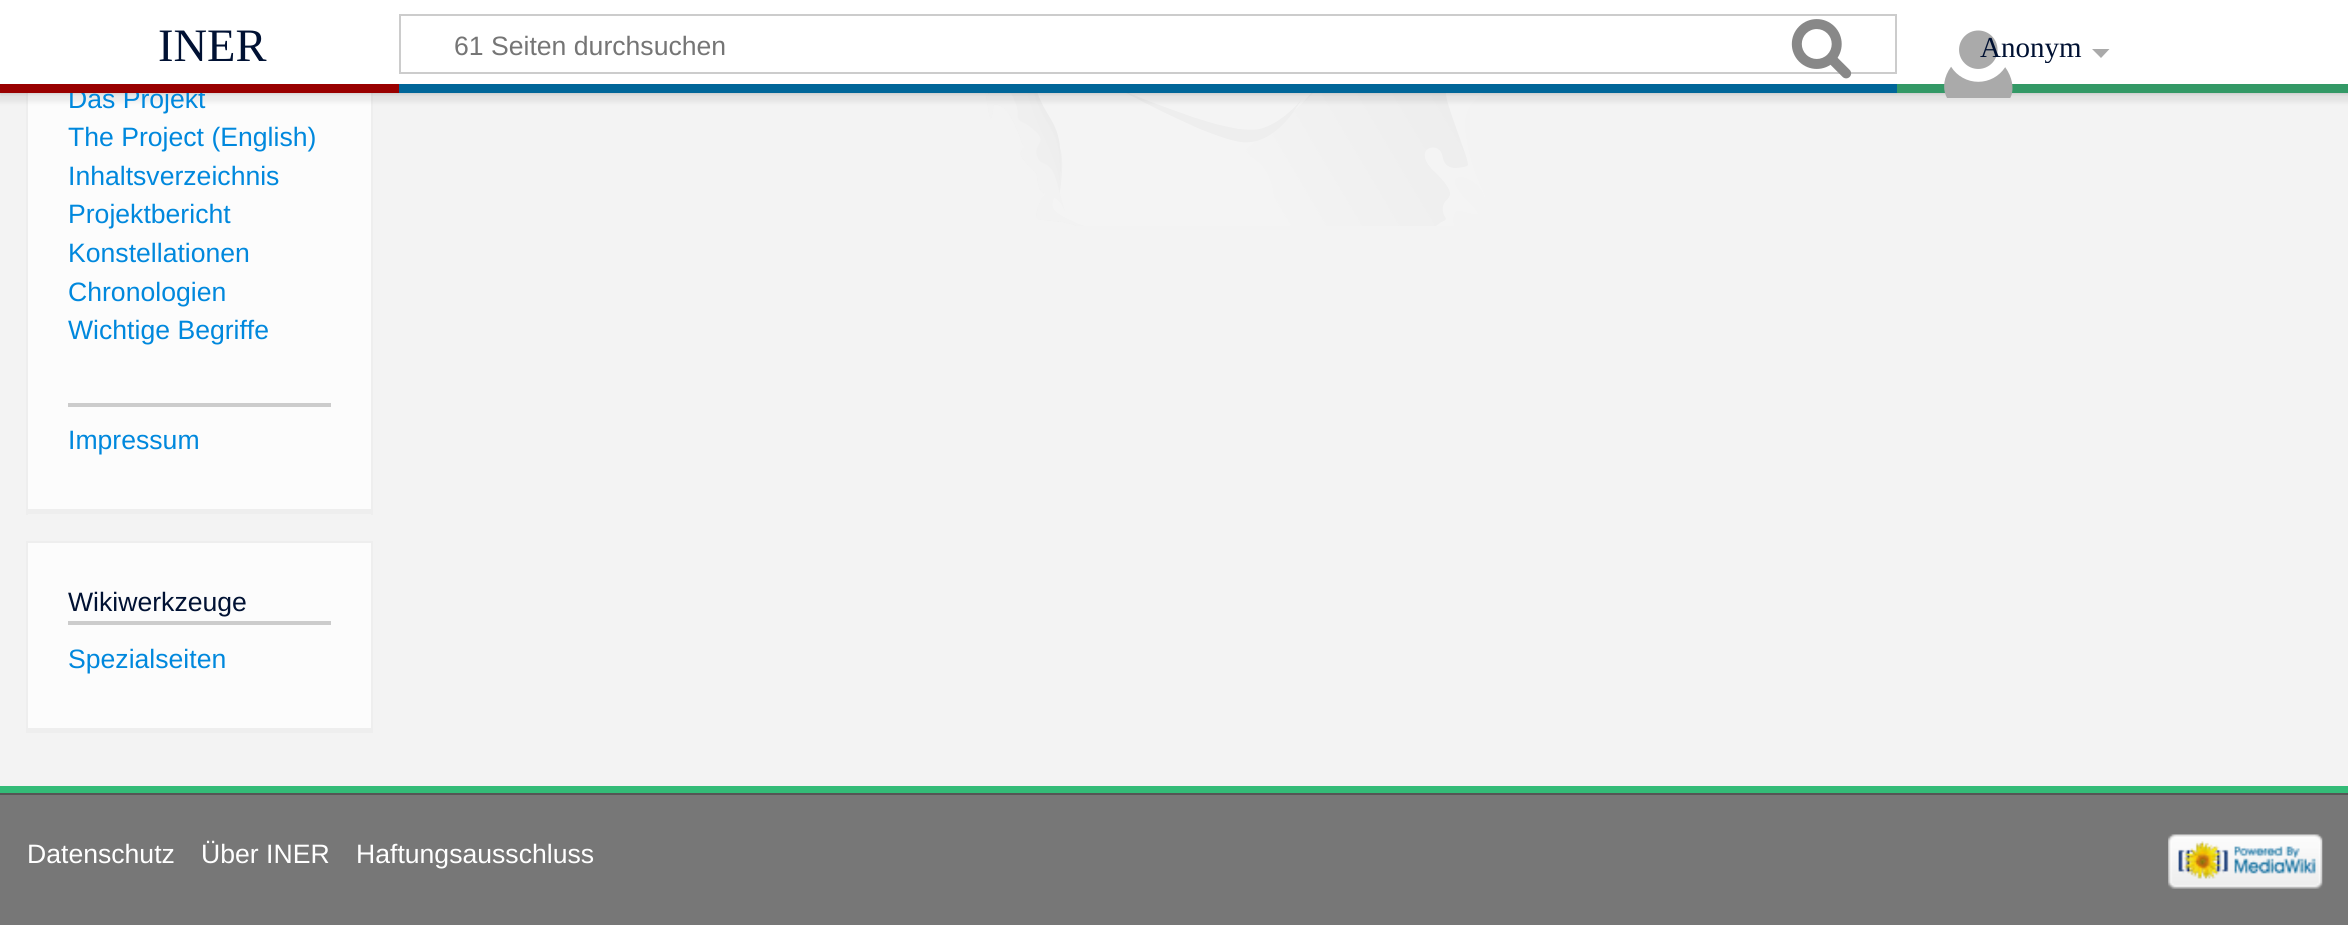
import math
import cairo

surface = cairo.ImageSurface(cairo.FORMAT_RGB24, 2348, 925)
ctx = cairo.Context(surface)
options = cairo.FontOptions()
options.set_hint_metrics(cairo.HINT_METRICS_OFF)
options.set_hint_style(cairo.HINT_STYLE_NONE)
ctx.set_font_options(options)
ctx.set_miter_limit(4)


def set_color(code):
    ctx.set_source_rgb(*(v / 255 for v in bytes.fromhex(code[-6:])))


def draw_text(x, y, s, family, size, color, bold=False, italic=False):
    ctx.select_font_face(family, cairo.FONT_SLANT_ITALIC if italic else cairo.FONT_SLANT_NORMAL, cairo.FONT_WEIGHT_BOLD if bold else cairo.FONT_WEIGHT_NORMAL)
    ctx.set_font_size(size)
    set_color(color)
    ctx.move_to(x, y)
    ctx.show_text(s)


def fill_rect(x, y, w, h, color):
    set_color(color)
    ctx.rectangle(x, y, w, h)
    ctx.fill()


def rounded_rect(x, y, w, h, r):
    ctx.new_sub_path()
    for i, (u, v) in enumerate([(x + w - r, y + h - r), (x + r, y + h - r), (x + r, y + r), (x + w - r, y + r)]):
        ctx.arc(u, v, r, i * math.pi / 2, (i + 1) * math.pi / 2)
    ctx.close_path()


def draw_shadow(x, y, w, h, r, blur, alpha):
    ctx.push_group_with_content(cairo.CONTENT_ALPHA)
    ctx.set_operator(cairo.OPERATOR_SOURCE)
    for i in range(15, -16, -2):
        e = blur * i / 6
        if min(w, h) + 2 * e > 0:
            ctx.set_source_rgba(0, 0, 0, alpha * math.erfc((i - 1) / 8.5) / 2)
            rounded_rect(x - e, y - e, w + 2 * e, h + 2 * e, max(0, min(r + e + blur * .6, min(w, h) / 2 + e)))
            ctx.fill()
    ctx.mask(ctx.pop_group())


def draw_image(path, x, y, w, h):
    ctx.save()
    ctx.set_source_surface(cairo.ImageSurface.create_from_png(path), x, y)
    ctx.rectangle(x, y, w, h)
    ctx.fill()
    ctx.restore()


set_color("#777777")
ctx.paint()
fill_rect(0, 93, 2348, 693, "#f3f3f3")
draw_image("assets/img3.png", 985, 93, 501, 133)
fill_rect(28, 93, 343, 416, "#fcfcfc")
fill_rect(371, 93, 2, 422, "#eeeeee")
fill_rect(26, 509, 347, 5, "#eeeeee")
fill_rect(26, 93, 2, 422, "#eeeeee")
set_color("#000000")
draw_shadow(0, 84, 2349, 9, 0, 2, 0.2)
draw_shadow(-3, 86, 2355, 16, 0, 2.5, 0.07)
fill_rect(0, 0, 2348, 84, "#ffffff")
draw_text(158, 61, "INER", "Liberation Serif", 46.5, "#001133")
ctx.rectangle(400, 15, 1496, 58)
set_color("#cccccc")
ctx.stroke()
draw_text(454, 55, "61 Seiten durchsuchen", "Liberation Sans", 26.6, "#757575")
draw_image("assets/img1.png", 1791, 19, 61, 60)
fill_rect(1897, 84, 451, 9, "#339966")
draw_image("assets/img2.png", 1944, 30, 69, 68)
ctx.save()
ctx.rectangle(1979, 33, 104, 30)
ctx.clip()
draw_text(1980, 57, "Anonym", "Liberation Serif", 29, "#001133")
ctx.restore()
set_color("#aaaaaa")
ctx.new_path()
ctx.move_to(2109.5, 49)
ctx.line_to(2101, 58)
ctx.line_to(2092, 49)
ctx.close_path()
ctx.fill()
draw_text(68, 108, "Das Projekt", "Liberation Sans", 26.6, "#0088dd")
fill_rect(0, 84, 399, 9, "#990000")
fill_rect(399, 84, 1498, 9, "#006699")
fill_rect(0, 786, 2348, 7, "#33bb77")
draw_text(68, 146, "The Project (English)", "Liberation Sans", 26.6, "#0088dd")
draw_text(68, 185, "Inhaltsverzeichnis", "Liberation Sans", 26.6, "#0088dd")
draw_text(68, 223, "Projektbericht", "Liberation Sans", 26.6, "#0088dd")
draw_text(68, 262, "Konstellationen", "Liberation Sans", 26.6, "#0088dd")
draw_text(68, 301, "Chronologien", "Liberation Sans", 26.6, "#0088dd")
draw_text(68, 339, "Wichtige Begriffe", "Liberation Sans", 26.6, "#0088dd")
fill_rect(68, 403, 263, 4, "#cccccc")
draw_text(68, 449, "Impressum", "Liberation Sans", 26.6, "#0088dd")
fill_rect(28, 543, 343, 185, "#fcfcfc")
fill_rect(26, 541, 347, 2, "#eeeeee")
fill_rect(371, 541, 2, 192, "#eeeeee")
fill_rect(26, 728, 347, 5, "#eeeeee")
fill_rect(26, 541, 2, 192, "#eeeeee")
fill_rect(68, 621, 263, 4, "#cccccc")
draw_text(68, 611, "Wikiwerkzeuge", "Liberation Sans", 26.6, "#001133")
draw_text(68, 668, "Spezialseiten", "Liberation Sans", 26.6, "#0088dd")
fill_rect(0, 793, 2348, 2, "#555555")
draw_text(27, 863, "Datenschutz", "Liberation Sans", 26.6, "#ffffff")
draw_text(201, 863, "Über INER", "Liberation Sans", 26.6, "#ffffff")
draw_text(356, 863, "Haftungsausschluss", "Liberation Sans", 26.6, "#ffffff")
draw_image("assets/img4.png", 2168, 834, 155, 55)
surface.write_to_png("output.png")
